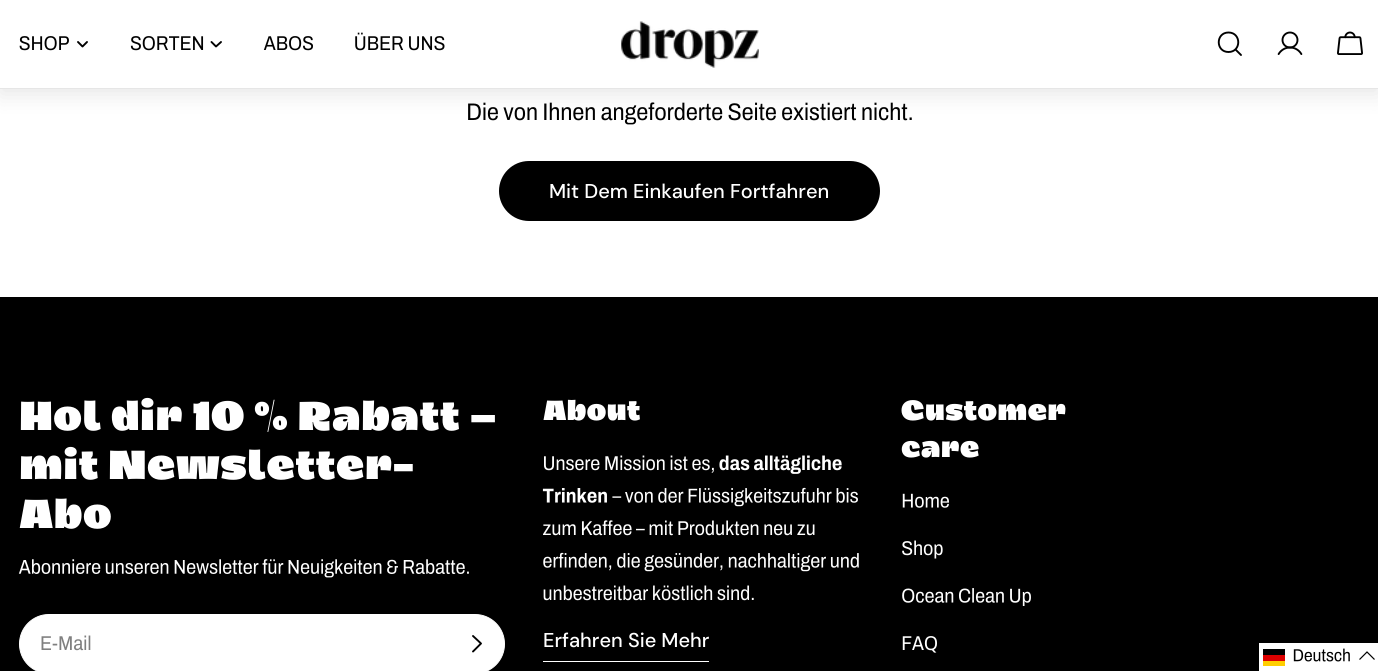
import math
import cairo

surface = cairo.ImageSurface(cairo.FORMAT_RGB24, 1378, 671)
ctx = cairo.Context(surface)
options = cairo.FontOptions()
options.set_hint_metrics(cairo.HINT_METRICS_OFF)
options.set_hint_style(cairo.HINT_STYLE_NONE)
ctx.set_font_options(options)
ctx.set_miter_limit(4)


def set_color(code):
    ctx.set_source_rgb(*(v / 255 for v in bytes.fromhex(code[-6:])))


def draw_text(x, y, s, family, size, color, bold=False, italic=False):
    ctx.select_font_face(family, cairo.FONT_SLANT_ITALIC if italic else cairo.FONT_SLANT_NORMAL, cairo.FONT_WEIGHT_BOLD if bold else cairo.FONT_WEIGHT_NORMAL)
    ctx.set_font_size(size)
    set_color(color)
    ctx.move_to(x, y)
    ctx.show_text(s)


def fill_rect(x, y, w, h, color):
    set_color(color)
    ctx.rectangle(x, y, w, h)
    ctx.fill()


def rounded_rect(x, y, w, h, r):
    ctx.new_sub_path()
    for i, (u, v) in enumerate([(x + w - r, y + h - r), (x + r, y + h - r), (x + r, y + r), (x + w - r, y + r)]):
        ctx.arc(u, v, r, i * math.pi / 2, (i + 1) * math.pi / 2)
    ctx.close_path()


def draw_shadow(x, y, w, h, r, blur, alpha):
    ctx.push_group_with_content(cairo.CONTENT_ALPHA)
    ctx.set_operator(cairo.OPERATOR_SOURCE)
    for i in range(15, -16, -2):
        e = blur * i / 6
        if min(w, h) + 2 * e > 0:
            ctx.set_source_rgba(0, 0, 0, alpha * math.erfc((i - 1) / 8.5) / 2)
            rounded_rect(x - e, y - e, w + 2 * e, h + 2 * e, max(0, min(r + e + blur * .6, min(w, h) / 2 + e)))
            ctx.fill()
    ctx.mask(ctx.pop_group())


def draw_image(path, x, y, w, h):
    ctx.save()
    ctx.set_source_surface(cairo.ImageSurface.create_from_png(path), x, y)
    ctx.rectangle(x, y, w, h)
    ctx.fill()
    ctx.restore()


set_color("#ffffff")
ctx.paint()
draw_image("assets/img8.png", 468, 102, 444, 23)
set_color("#000000")
draw_shadow(0, 5, 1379, 89, 0, 11, 0.1)
fill_rect(0, 88, 1378, 1, "#e6e6e6")
fill_rect(0, 0, 1378, 88, "#ffffff")
draw_image("assets/img1.png", 19, 36, 50, 15)
ctx.new_path()
ctx.move_to(87, 42)
ctx.line_to(82.5, 46.5)
ctx.line_to(78, 42)
set_color("#000000")
ctx.set_line_width(1.9)
ctx.set_line_cap(cairo.LINE_CAP_ROUND)
ctx.set_line_join(cairo.LINE_JOIN_ROUND)
ctx.stroke()
draw_image("assets/img2.png", 130, 36, 74, 15)
ctx.new_path()
ctx.move_to(221, 42)
ctx.line_to(216, 46.5)
ctx.line_to(211.5, 42)
ctx.stroke()
draw_image("assets/img3.png", 263, 36, 50, 15)
draw_image("assets/img4.png", 355, 32, 90, 19)
draw_image("assets/img5.png", 621, 21, 138, 47)
ctx.new_path()
ctx.move_to(1228.5, 52)
ctx.curve_to(1241.5, 52, 1241.5, 32.5, 1228.5, 32.5)
ctx.curve_to(1215.5, 32.5, 1215.5, 52, 1228.5, 52)
ctx.close_path()
ctx.move_to(1235.5, 49.5)
ctx.line_to(1241, 55)
ctx.stroke()
draw_image("assets/img6.png", 1277, 31, 26, 24)
draw_image("assets/img7.png", 1337, 31, 26, 24)
rounded_rect(499, 161, 381, 60, 30)
ctx.fill()
draw_text(549, 198, "Mit Dem Einkaufen Fortfahren", "DM Sans Medium", 20, "#ffffff")
fill_rect(0, 297, 1378, 374, "#000000")
draw_text(19, 430, "Hol dir 10 % Rabatt –", "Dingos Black", 37.25, "#ffffff")
draw_text(19, 479, "mit Newsletter-", "Dingos Black", 37.25, "#ffffff")
draw_text(19, 528, "Abo", "Dingos Black", 37.25, "#ffffff")
draw_image("assets/img9.png", 18, 559, 451, 19)
rounded_rect(19.5, 614.5, 485, 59, 29.5)
ctx.fill_preserve()
ctx.set_line_width(1)
ctx.set_line_cap(cairo.LINE_CAP_BUTT)
ctx.set_line_join(cairo.LINE_JOIN_MITER)
ctx.stroke()
draw_image("assets/img10.png", 41, 635, 50, 16)
ctx.new_path()
ctx.move_to(473, 636)
ctx.line_to(481, 643.5)
ctx.line_to(473, 651.5)
set_color("#000000")
ctx.set_line_width(1.9)
ctx.set_line_cap(cairo.LINE_CAP_ROUND)
ctx.set_line_join(cairo.LINE_JOIN_ROUND)
ctx.stroke()
draw_text(543, 420, "About", "Dingos Black", 25.5, "#ffffff")
draw_image("assets/img11.png", 544, 455, 170, 18)
draw_image("assets/img12.png", 719, 455, 123, 19)
draw_image("assets/img13.png", 542, 488, 65, 15)
draw_image("assets/img14.png", 612, 487, 246, 20)
draw_image("assets/img15.png", 543, 520, 272, 16)
draw_image("assets/img16.png", 543, 552, 316, 20)
draw_image("assets/img17.png", 543, 585, 211, 16)
draw_text(543, 647, "Erfahren Sie Mehr", "DM Sans Medium", 20, "#ffffff")
fill_rect(543, 661, 166, 1, "#ffffff")
draw_text(901, 420, "Customer", "Dingos Black", 25.5, "#ffffff")
draw_text(901, 457, "care", "Dingos Black", 25.5, "#ffffff")
draw_image("assets/img18.png", 902, 493, 47, 15)
draw_image("assets/img19.png", 902, 540, 41, 19)
draw_image("assets/img20.png", 902, 588, 129, 18)
draw_image("assets/img21.png", 902, 636, 35, 17)
fill_rect(1259, 643, 119, 28, "#ffffff")
fill_rect(1263, 661, 22, 5, "#ffce00")
fill_rect(1263, 649, 22, 6, "#000000")
fill_rect(1263, 655, 22, 6, "#dd0000")
draw_image("assets/img22.png", 1293, 648, 57, 14)
ctx.new_path()
ctx.move_to(1374.5, 659.5)
ctx.line_to(1367, 652)
ctx.line_to(1359.5, 659.5)
set_color("#000000")
ctx.set_line_width(1.2)
ctx.set_line_cap(cairo.LINE_CAP_BUTT)
ctx.set_line_join(cairo.LINE_JOIN_MITER)
ctx.stroke()
surface.write_to_png("output.png")
